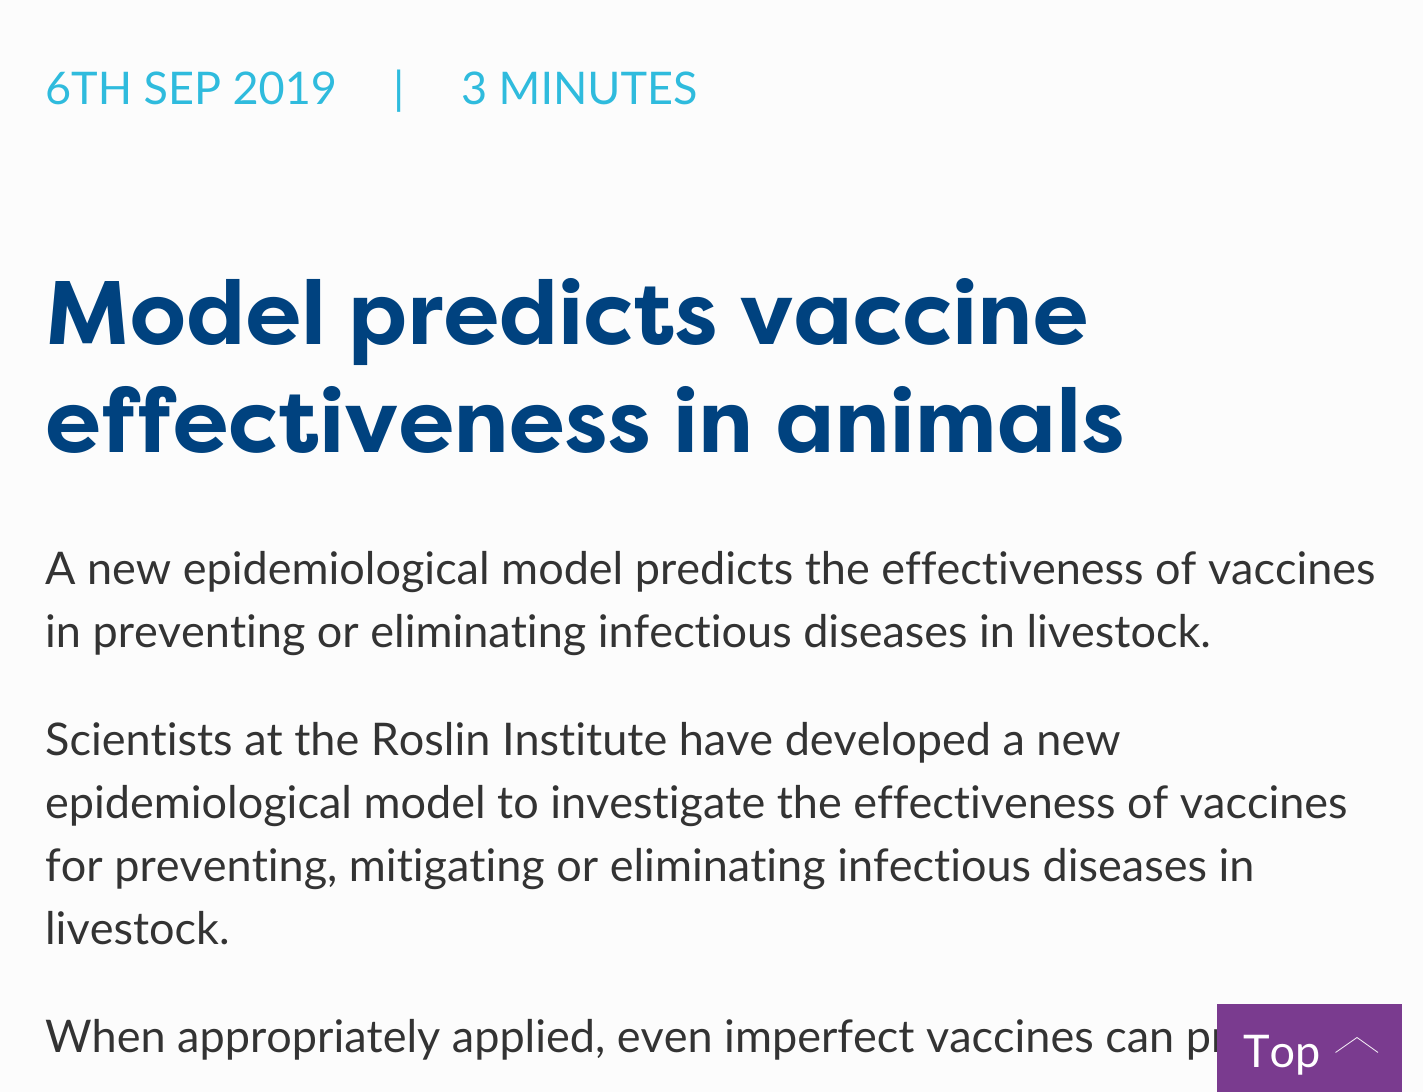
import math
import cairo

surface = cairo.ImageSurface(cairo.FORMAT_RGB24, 1423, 1092)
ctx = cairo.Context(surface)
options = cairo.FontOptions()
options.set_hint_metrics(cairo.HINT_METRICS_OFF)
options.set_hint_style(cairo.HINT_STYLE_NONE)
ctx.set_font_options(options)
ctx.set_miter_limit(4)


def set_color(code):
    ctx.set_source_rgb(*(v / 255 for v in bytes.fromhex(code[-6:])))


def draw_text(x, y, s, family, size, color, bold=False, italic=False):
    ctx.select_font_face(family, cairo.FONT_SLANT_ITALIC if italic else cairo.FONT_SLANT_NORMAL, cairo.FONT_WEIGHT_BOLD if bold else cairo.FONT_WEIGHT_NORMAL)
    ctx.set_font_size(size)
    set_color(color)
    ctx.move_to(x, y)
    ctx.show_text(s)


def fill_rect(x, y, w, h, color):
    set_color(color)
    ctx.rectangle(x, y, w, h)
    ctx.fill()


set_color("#fcfcfc")
ctx.paint()
draw_text(45, 104, "6TH SEP 2019", "Lato", 45, "#2fbbdd")
draw_text(393, 104, "|", "Lato", 45, "#2fbbdd")
draw_text(461, 104, "3 MINUTES", "Lato", 45, "#2fbbdd")
draw_text(45, 344, "Model predicts vaccine", "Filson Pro", 90, "#00427f", bold=True)
draw_text(45, 452, "effectiveness in animals", "Filson Pro", 90, "#00427f", bold=True)
draw_text(45, 584, "A new epidemiological model predicts the effectiveness of vaccines", "Lato", 45, "#333333")
draw_text(45, 647, "in preventing or eliminating infectious diseases in livestock.", "Lato", 45, "#333333")
draw_text(45, 755, "Scientists at the Roslin Institute have developed a new", "Lato", 45, "#333333")
draw_text(45, 818, "epidemiological model to investigate the effectiveness of vaccines", "Lato", 45, "#333333")
draw_text(45, 881, "for preventing, mitigating or eliminating infectious diseases in", "Lato", 45, "#333333")
draw_text(45, 944, "livestock.", "Lato", 45, "#333333")
draw_text(45, 1052, "When appropriately applied, even imperfect vaccines can pr", "Lato", 45, "#333333")
fill_rect(1217, 1004, 185, 88, "#7a3b8f")
draw_text(1243, 1067, "Top", "Lato", 45, "#ffffff")
ctx.new_path()
ctx.move_to(1335.5, 1052.5)
ctx.line_to(1357, 1037.5)
ctx.line_to(1378, 1052.5)
ctx.set_line_width(0.9)
ctx.stroke()
surface.write_to_png("output.png")
